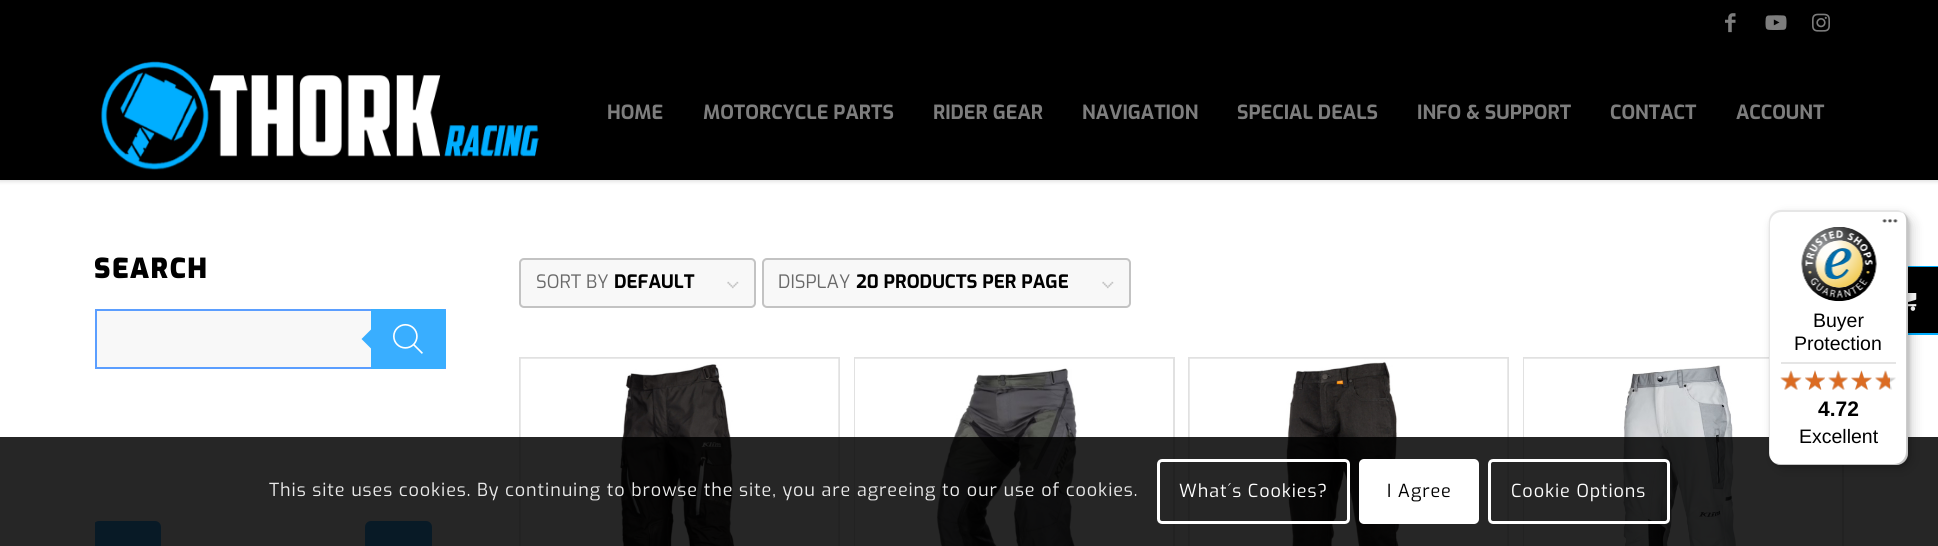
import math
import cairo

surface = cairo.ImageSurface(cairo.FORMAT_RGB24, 1938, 546)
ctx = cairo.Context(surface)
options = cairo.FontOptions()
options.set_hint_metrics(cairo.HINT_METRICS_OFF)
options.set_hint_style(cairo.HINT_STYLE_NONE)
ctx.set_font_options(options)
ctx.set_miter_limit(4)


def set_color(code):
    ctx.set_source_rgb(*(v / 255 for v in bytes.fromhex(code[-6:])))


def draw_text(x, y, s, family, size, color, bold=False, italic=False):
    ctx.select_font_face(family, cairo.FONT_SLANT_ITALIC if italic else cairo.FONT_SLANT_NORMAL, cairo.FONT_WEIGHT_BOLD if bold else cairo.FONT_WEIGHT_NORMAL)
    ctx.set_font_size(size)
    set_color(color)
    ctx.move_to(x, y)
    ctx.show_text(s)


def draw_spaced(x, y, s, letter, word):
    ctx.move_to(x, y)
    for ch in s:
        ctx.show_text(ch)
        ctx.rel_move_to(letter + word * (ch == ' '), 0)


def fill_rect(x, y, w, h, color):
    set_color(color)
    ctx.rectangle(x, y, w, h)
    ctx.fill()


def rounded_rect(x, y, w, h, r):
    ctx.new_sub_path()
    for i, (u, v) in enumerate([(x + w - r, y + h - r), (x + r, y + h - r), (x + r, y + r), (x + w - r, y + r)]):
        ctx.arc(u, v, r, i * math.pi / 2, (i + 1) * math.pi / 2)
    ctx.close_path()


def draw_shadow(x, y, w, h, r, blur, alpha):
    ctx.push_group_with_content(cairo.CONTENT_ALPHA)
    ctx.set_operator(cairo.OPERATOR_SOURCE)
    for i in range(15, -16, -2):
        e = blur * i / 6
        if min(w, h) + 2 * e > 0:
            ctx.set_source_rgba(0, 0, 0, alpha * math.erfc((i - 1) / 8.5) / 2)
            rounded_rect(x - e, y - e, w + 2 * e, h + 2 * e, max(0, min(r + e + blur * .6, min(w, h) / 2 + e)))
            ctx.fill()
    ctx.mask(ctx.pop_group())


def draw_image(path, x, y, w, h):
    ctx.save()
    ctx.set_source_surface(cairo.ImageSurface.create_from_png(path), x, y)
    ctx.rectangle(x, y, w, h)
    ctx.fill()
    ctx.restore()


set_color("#ffffff")
ctx.paint()
set_color("#000000")
draw_shadow(-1, -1, 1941, 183, 0, 1.5, 0.1)
fill_rect(0, 0, 1938, 180, "#000000")
draw_image("assets/img1.png", 1725, 13, 11, 20)
draw_image("assets/img2.png", 1765, 15, 22, 15)
draw_image("assets/img3.png", 1812, 13, 18, 19)
draw_image("assets/img4.png", 101, 61, 438, 109)
draw_text(607, 119, "HOME", "Exo", 19.5, "#7d7d7d", bold=True)
draw_text(703, 119, "MOTORCYCLE PARTS", "Exo", 19.5, "#7d7d7d", bold=True)
draw_text(933, 119, "RIDER GEAR", "Exo", 19.5, "#7d7d7d", bold=True)
draw_text(1082, 119, "NAVIGATION", "Exo", 19.5, "#7d7d7d", bold=True)
draw_text(1237, 119, "SPECIAL DEALS", "Exo", 19.5, "#7d7d7d", bold=True)
draw_text(1417, 119, "INFO & SUPPORT", "Exo", 19.5, "#7d7d7d", bold=True)
draw_text(1610, 119, "CONTACT", "Exo", 19.5, "#7d7d7d", bold=True)
draw_text(1736, 119, "ACCOUNT", "Exo", 19.5, "#7d7d7d", bold=True)
ctx.rectangle(1873, 267, 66, 67)
set_color("#00aeff")
ctx.stroke()
fill_rect(1908, 267, 30, 66, "#000000")
draw_image("assets/img5.png", 1908, 293, 9, 18)
ctx.select_font_face("Exo Black")
ctx.set_font_size(27.5)
draw_spaced(94, 278, "SEARCH", 1.5, 0)
fill_rect(97, 311, 274, 56, "#f8f8f8")
ctx.rectangle(96, 310, 349, 58)
set_color("#5b9eff")
ctx.stroke()
set_color("#39aeff")
ctx.new_path()
ctx.move_to(371, 309)
ctx.line_to(443, 309)
ctx.curve_to(444.5, 309, 446, 310.5, 446, 312)
ctx.line_to(446, 366)
ctx.curve_to(446, 367.5, 444.5, 369, 443, 369)
ctx.line_to(371, 369)
ctx.close_path()
ctx.fill()
ctx.new_path()
ctx.move_to(373.5, 327)
ctx.line_to(373.5, 351)
ctx.line_to(361.5, 339)
ctx.close_path()
ctx.fill()
draw_image("assets/img6.png", 393, 323, 30, 31)
ctx.save()
ctx.rectangle(95, 179, 351, 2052)
ctx.clip()
rounded_rect(93, 521, 68, 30, 6)
ctx.fill()
ctx.restore()
rounded_rect(365, 521, 67, 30, 6)
ctx.fill()
set_color("#f8f8f8")
rounded_rect(519, 258, 237, 50, 5)
ctx.fill()
draw_image("assets/img7.png", 727, 281, 12, 8)
rounded_rect(520, 259, 235, 48, 4)
set_color("#c3c3c3")
ctx.stroke()
draw_text(536, 288, "SORT BY", "Exo", 18.5, "#696969")
draw_text(614, 288, "DEFAULT", "Exo", 18.5, "#000000", bold=True)
set_color("#f8f8f8")
rounded_rect(762, 258, 369, 50, 5)
ctx.fill()
draw_image("assets/img7.png", 1102, 281, 12, 8)
rounded_rect(763, 259, 367, 48, 4)
set_color("#c3c3c3")
ctx.stroke()
draw_text(778, 288, "DISPLAY", "Exo", 18.5, "#696969")
draw_text(856, 288, "20 PRODUCTS PER PAGE", "Exo", 18.5, "#000000", bold=True)
ctx.rectangle(520, 358, 319, 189)
set_color("#e1e1e1")
ctx.stroke()
draw_image("assets/img8.png", 520, 358, 319, 188)
ctx.rectangle(855, 358, 319, 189)
ctx.stroke()
draw_image("assets/img9.png", 855, 358, 318, 188)
ctx.rectangle(1189, 358, 319, 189)
ctx.stroke()
draw_image("assets/img10.png", 1189, 358, 319, 188)
ctx.rectangle(1524, 358, 319, 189)
ctx.stroke()
draw_image("assets/img11.png", 1524, 358, 318, 188)
ctx.set_source_rgba(0, 0, 0, 0.85)
ctx.rectangle(0, 437, 1938, 109)
ctx.fill()
set_color("#000000")
draw_shadow(1773, 215, 140, 255, 12, 6, 0.15)
draw_shadow(1770, 212, 140, 255, 12, 1.5, 0.15)
set_color("#ffffff")
rounded_rect(1769, 210, 139, 255, 12)
ctx.fill()
ctx.set_source_rgba(0, 0, 0, 0.1)
ctx.new_path()
ctx.move_to(1782, 212)
ctx.line_to(1898, 212)
ctx.curve_to(1901, 212, 1903, 213, 1906, 215)
ctx.curve_to(1903, 212, 1900, 210, 1896, 210)
ctx.line_to(1781, 210)
ctx.curve_to(1774, 210, 1769, 215, 1769, 222)
ctx.line_to(1769, 453)
ctx.curve_to(1769, 456, 1770, 459, 1772, 461)
ctx.curve_to(1771, 459, 1770, 457, 1770, 454)
ctx.line_to(1770, 224)
ctx.curve_to(1770, 217, 1775, 212, 1782, 212)
ctx.close_path()
ctx.fill()
ctx.set_source_rgba(0, 0, 0, 0.2)
ctx.new_path()
ctx.move_to(1775, 463)
ctx.curve_to(1776, 464, 1779, 465, 1781, 465)
ctx.line_to(1896, 465)
ctx.curve_to(1903, 465, 1908, 460, 1908, 453)
ctx.line_to(1908, 222)
ctx.curve_to(1908, 218, 1906, 215, 1903, 212)
ctx.curve_to(1905, 215, 1906, 217, 1906, 220)
ctx.line_to(1906, 452)
ctx.curve_to(1906, 458, 1901, 464, 1894, 464)
ctx.line_to(1779, 464)
ctx.close_path()
ctx.fill()
ctx.set_source_rgba(0.196, 0.196, 0.196, 0.2)
ctx.new_path()
ctx.move_to(1773, 462)
ctx.curve_to(1775, 464, 1778, 465, 1781, 465)
ctx.line_to(1896, 465)
ctx.curve_to(1903, 465, 1908, 460, 1908, 453)
ctx.line_to(1908, 222)
ctx.curve_to(1908, 219, 1907, 216, 1905, 214)
ctx.curve_to(1906, 216, 1907, 218, 1907, 221)
ctx.line_to(1907, 452)
ctx.curve_to(1907, 459, 1902, 464, 1895, 464)
ctx.line_to(1780, 464)
ctx.curve_to(1777, 464, 1775, 463, 1773, 462)
ctx.close_path()
ctx.fill()
ctx.set_source_rgba(1, 1, 1, 0.3)
ctx.new_path()
ctx.move_to(1773, 462)
ctx.curve_to(1775, 464, 1778, 465, 1781, 465)
ctx.line_to(1896, 465)
ctx.curve_to(1903, 465, 1908, 460, 1908, 453)
ctx.line_to(1908, 222)
ctx.curve_to(1908, 218, 1906, 215, 1904, 213)
ctx.curve_to(1906, 215, 1907, 218, 1907, 221)
ctx.line_to(1907, 452)
ctx.curve_to(1907, 459, 1902, 464, 1895, 464)
ctx.line_to(1780, 464)
ctx.curve_to(1777, 464, 1775, 463, 1773, 462)
ctx.close_path()
ctx.fill()
draw_image("assets/img12.png", 1882, 219, 16, 4)
draw_image("assets/img13.png", 1801, 227, 76, 75)
draw_text(1813, 327, "Buyer", "Liberation Sans", 19.5, "#000000")
draw_text(1794, 350, "Protection", "Liberation Sans", 19.5, "#000000")
fill_rect(1781, 362, 115, 2, "#e5e5e5")
draw_image("assets/img19.png", 1781, 371, 20, 19)
draw_image("assets/img14.png", 1780, 370, 22, 20)
draw_image("assets/img20.png", 1805, 370, 20, 20)
draw_image("assets/img15.png", 1805, 370, 20, 20)
draw_image("assets/img21.png", 1828, 370, 20, 20)
draw_image("assets/img16.png", 1828, 370, 20, 20)
draw_image("assets/img22.png", 1851, 371, 21, 19)
draw_image("assets/img17.png", 1851, 370, 21, 20)
draw_image("assets/img23.png", 1875, 371, 21, 19)
draw_image("assets/img18.png", 1875, 370, 15, 20)
draw_text(1818, 416, "4.72", "Liberation Sans", 21, "#000000", bold=True)
draw_text(1799, 443, "Excellent", "Liberation Sans", 19.5, "#000000")
ctx.select_font_face("Exo")
ctx.set_font_size(18)
set_color("#e9e9e9")
draw_spaced(269, 496, "This site uses cookies. By continuing to browse the site, you are agreeing to our use of cookies.", 0.9, 0)
rounded_rect(1158.5, 460.5, 190, 62, 3.5)
set_color("#ffffff")
ctx.set_line_width(3)
ctx.stroke()
draw_spaced(1179, 497, "What´s Cookies?", 0.9, 0)
rounded_rect(1359, 459, 120, 65, 5)
ctx.fill()
set_color("#000000")
draw_spaced(1387, 497, "I Agree", 0.9, 0)
rounded_rect(1489.5, 460.5, 179, 62, 3.5)
set_color("#ffffff")
ctx.stroke()
draw_spaced(1511, 497, "Cookie Options", 0.9, 0)
surface.write_to_png("output.png")
